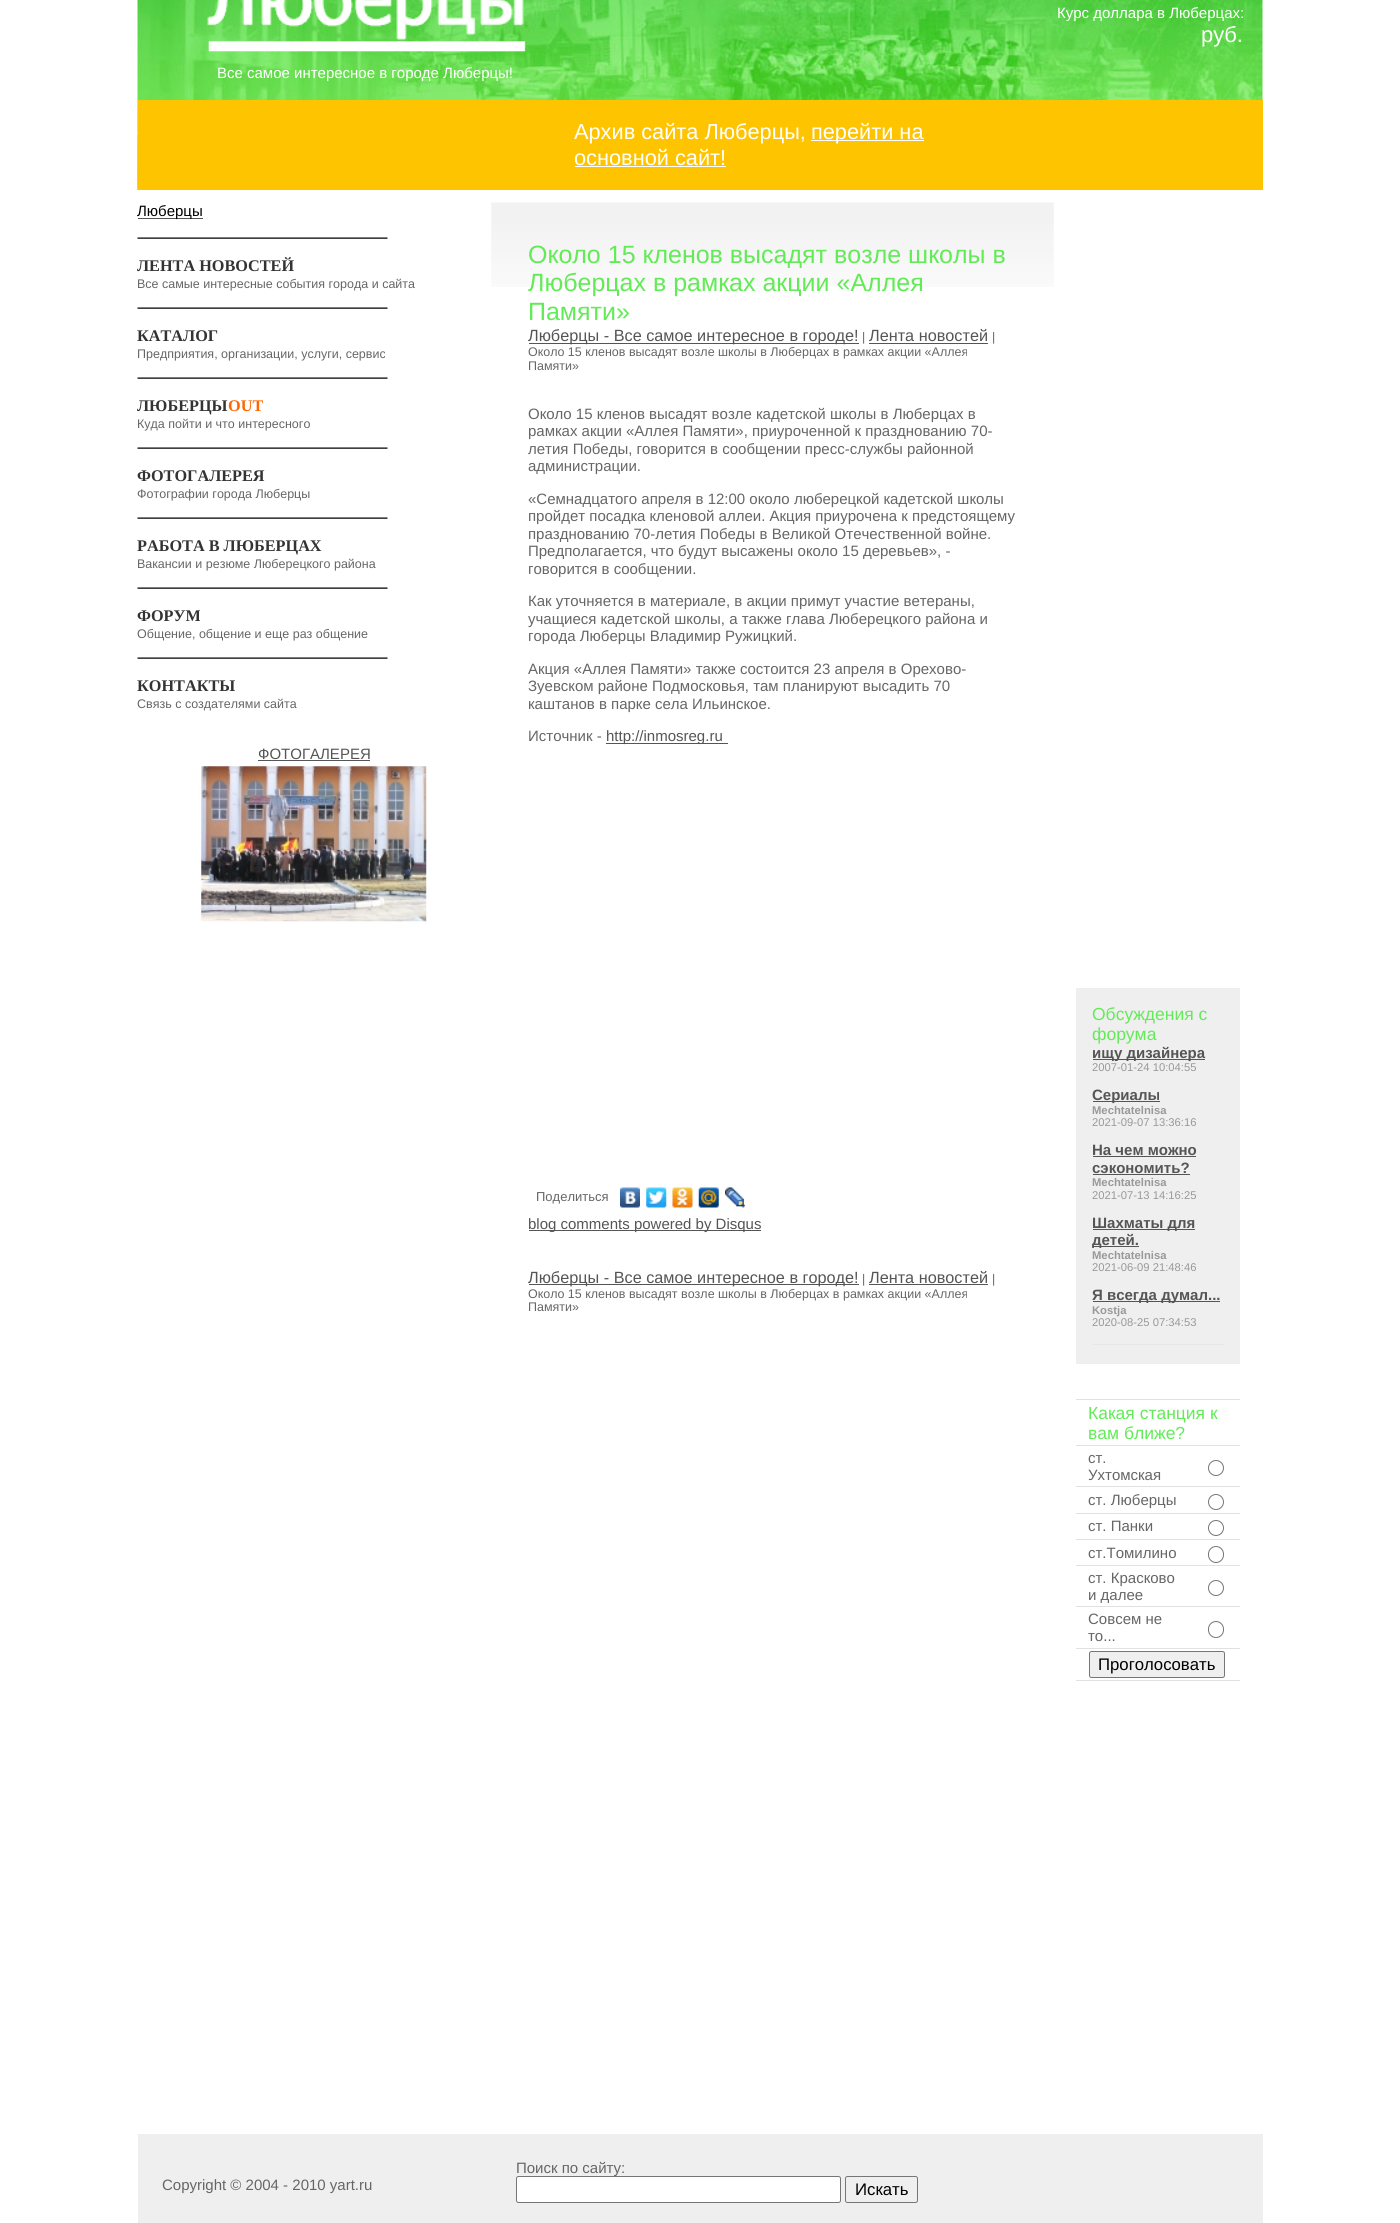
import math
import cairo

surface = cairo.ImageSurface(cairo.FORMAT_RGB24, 1400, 2223)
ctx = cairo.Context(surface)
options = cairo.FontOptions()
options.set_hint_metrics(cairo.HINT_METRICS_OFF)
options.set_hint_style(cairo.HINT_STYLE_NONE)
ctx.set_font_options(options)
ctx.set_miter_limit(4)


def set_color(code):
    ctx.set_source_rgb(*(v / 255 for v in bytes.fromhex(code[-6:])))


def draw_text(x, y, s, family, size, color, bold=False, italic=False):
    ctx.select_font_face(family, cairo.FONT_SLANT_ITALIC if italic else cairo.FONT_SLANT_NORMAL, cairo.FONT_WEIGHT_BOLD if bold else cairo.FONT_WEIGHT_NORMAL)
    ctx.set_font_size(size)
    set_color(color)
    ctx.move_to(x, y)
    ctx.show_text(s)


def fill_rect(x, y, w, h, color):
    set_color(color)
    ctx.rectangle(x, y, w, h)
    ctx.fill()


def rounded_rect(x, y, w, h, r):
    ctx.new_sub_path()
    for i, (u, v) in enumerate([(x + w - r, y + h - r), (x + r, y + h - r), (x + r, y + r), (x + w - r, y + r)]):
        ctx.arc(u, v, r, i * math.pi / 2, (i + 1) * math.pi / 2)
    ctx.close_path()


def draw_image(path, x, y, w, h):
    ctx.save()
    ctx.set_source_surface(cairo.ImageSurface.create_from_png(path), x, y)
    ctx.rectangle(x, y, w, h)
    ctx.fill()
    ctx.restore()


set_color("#ffffff")
ctx.paint()
draw_image("assets/img1.png", 137, 0, 1126, 190)
draw_text(1057, 18, "Курс доллара в Люберцах:", "Liberation Sans", 15, "#ffffff")
draw_text(1201, 42, "руб.", "Liberation Sans", 22, "#ffffff")
draw_image("assets/img2.png", 207, 0, 319, 52)
draw_text(217, 78, "Все самое интересное в городе Люберцы!", "Liberation Sans", 15, "#ffffff")
fill_rect(138, 100, 1125, 90, "#ffc400")
draw_text(574, 139, "Архив сайта Люберцы,", "Liberation Sans", 21.75, "#ffffff")
fill_rect(811, 140, 113, 1, "#ffffff")
draw_text(811, 139, "перейти на", "Liberation Sans", 21.75, "#ffffff")
draw_text(574, 165, "основной сайт!", "Liberation Sans", 21.75, "#ffffff")
fill_rect(575, 166, 151, 1, "#ffffff")
fill_rect(138, 218, 65, 1, "#555555")
draw_text(137, 216, "Люберцы", "Liberation Sans", 15, "#000000")
draw_image("assets/img3.png", 137, 237, 251, 2)
draw_text(137, 271, "ЛЕНТА НОВОСТЕЙ", "Liberation Serif", 16.25, "#333333", bold=True)
draw_text(137, 288, "Все самые интересные события города и сайта", "Liberation Sans", 12.5, "#666666")
draw_image("assets/img3.png", 137, 307, 251, 2)
draw_text(137, 341, "КАТАЛОГ", "Liberation Serif", 16.25, "#333333", bold=True)
draw_text(137, 358, "Предприятия, организации, услуги, сервис", "Liberation Sans", 12.5, "#666666")
draw_image("assets/img3.png", 137, 377, 251, 2)
draw_text(137, 411, "ЛЮБЕРЦЫ", "Liberation Serif", 16.25, "#333333", bold=True)
draw_text(228, 411, "OUT", "Liberation Serif", 16.25, "#ff6600", bold=True)
draw_text(137, 428, "Куда пойти и что интересного", "Liberation Sans", 12.5, "#666666")
draw_image("assets/img3.png", 137, 447, 251, 2)
draw_text(137, 481, "ФОТОГАЛЕРЕЯ", "Liberation Serif", 16.25, "#333333", bold=True)
draw_text(137, 498, "Фотографии города Люберцы", "Liberation Sans", 12.5, "#666666")
draw_image("assets/img3.png", 137, 517, 251, 2)
draw_text(137, 551, "РАБОТА В ЛЮБЕРЦАХ", "Liberation Serif", 16.25, "#333333", bold=True)
draw_text(137, 568, "Вакансии и резюме Люберецкого района", "Liberation Sans", 12.5, "#666666")
draw_image("assets/img3.png", 137, 587, 251, 2)
draw_text(137, 621, "ФОРУМ", "Liberation Serif", 16.25, "#333333", bold=True)
draw_text(137, 638, "Общение, общение и еще раз общение", "Liberation Sans", 12.5, "#666666")
draw_image("assets/img3.png", 137, 657, 251, 2)
draw_text(137, 691, "КОНТАКТЫ", "Liberation Serif", 16.25, "#333333", bold=True)
draw_text(137, 708, "Связь с создателями сайта", "Liberation Sans", 12.5, "#666666")
draw_text(258, 759, "ФОТОГАЛЕРЕЯ", "Liberation Sans", 15, "#555555")
fill_rect(258, 760, 112, 1, "#555555")
draw_image("assets/img4.png", 201, 766, 226, 156)
draw_image("assets/img5.png", 491, 202, 563, 85)
draw_text(528, 263, "Около 15 кленов высадят возле школы в", "Liberation Sans", 25, "#62eb57")
draw_text(528, 291, "Люберцах в рамках акции «Аллея", "Liberation Sans", 25, "#62eb57")
draw_text(528, 320, "Памяти»", "Liberation Sans", 25, "#62eb57")
fill_rect(529, 343, 330, 1, "#555555")
draw_text(528, 341, "Люберцы - Все самое интересное в городе!", "Liberation Sans", 16.25, "#555555")
draw_text(862, 341, "|", "Liberation Sans", 12.5, "#666666")
draw_text(869, 341, "Лента новостей", "Liberation Sans", 16.25, "#555555")
fill_rect(869, 343, 119, 1, "#555555")
draw_text(992, 341, "|", "Liberation Sans", 12.5, "#666666")
draw_text(528, 356, "Около 15 кленов высадят возле школы в Люберцах в рамках акции «Аллея", "Liberation Sans", 12.5, "#666666")
draw_text(528, 370, "Памяти»", "Liberation Sans", 12.5, "#666666")
draw_text(528, 419, "Около 15 кленов высадят возле кадетской школы в Люберцах в", "Liberation Sans", 15, "#666666")
draw_text(528, 436, "рамках акции «Аллея Памяти», приуроченной к празднованию 70-", "Liberation Sans", 15, "#666666")
draw_text(528, 454, "летия Победы, говорится в сообщении пресс-службы районной", "Liberation Sans", 15, "#666666")
draw_text(528, 471, "администрации.", "Liberation Sans", 15, "#666666")
draw_text(528, 504, "«Семнадцатого апреля в 12:00 около люберецкой кадетской школы", "Liberation Sans", 15, "#666666")
draw_text(528, 521, "пройдет посадка кленовой аллеи. Акция приурочена к предстоящему", "Liberation Sans", 15, "#666666")
draw_text(528, 539, "празднованию 70-летия Победы в Великой Отечественной войне.", "Liberation Sans", 15, "#666666")
draw_text(528, 556, "Предполагается, что будут высажены около 15 деревьев», -", "Liberation Sans", 15, "#666666")
draw_text(528, 574, "говорится в сообщении.", "Liberation Sans", 15, "#666666")
draw_text(528, 606, "Как уточняется в материале, в акции примут участие ветераны,", "Liberation Sans", 15, "#666666")
draw_text(528, 624, "учащиеся кадетской школы, а также глава Люберецкого района и", "Liberation Sans", 15, "#666666")
draw_text(528, 641, "города Люберцы Владимир Ружицкий.", "Liberation Sans", 15, "#666666")
draw_text(528, 674, "Акция «Аллея Памяти» также состоится 23 апреля в Орехово-", "Liberation Sans", 15, "#666666")
draw_text(528, 691, "Зуевском районе Подмосковья, там планируют высадить 70", "Liberation Sans", 15, "#666666")
draw_text(528, 709, "каштанов в парке села Ильинское.", "Liberation Sans", 15, "#666666")
draw_text(528, 741, "Источник -", "Liberation Sans", 15, "#666666")
fill_rect(606, 743, 122, 1, "#555555")
draw_text(606, 741, "http://inmosreg.ru", "Liberation Sans", 15, "#555555")
draw_text(536, 1201, "Поделиться", "Liberation Sans", 13, "#666666")
draw_image("assets/img6.png", 620, 1187, 20, 21)
draw_image("assets/img7.png", 646, 1187, 21, 21)
draw_image("assets/img8.png", 672, 1187, 21, 21)
draw_image("assets/img9.png", 698, 1187, 21, 21)
draw_image("assets/img10.png", 725, 1187, 20, 21)
fill_rect(529, 1230, 232, 1, "#555555")
draw_text(528, 1229, "blog comments powered by Disqus", "Liberation Sans", 15, "#555555")
fill_rect(529, 1284, 330, 1, "#555555")
draw_text(528, 1283, "Люберцы - Все самое интересное в городе!", "Liberation Sans", 16.25, "#555555")
draw_text(862, 1283, "|", "Liberation Sans", 12.5, "#666666")
draw_text(869, 1283, "Лента новостей", "Liberation Sans", 16.25, "#555555")
fill_rect(869, 1284, 119, 1, "#555555")
draw_text(992, 1283, "|", "Liberation Sans", 12.5, "#666666")
draw_text(528, 1298, "Около 15 кленов высадят возле школы в Люберцах в рамках акции «Аллея", "Liberation Sans", 12.5, "#666666")
draw_text(528, 1311, "Памяти»", "Liberation Sans", 12.5, "#666666")
fill_rect(1076, 988, 164, 376, "#efefef")
draw_text(1092, 1020, "Обсуждения с", "Liberation Sans", 17.5, "#62eb57")
draw_text(1092, 1040, "форума", "Liberation Sans", 17.5, "#62eb57")
fill_rect(1093, 1059, 112, 1, "#555555")
draw_text(1092, 1058, "ищу дизайнера", "Liberation Sans", 15, "#555555", bold=True)
draw_text(1092, 1071, "2007-01-24 10:04:55", "Liberation Sans", 11.25, "#999999")
fill_rect(1093, 1101, 67, 1, "#555555")
draw_text(1092, 1100, "Сериалы", "Liberation Sans", 15, "#555555", bold=True)
draw_text(1092, 1114, "Mechtatelnisa", "Liberation Sans", 11.25, "#999999", bold=True)
draw_text(1092, 1126, "2021-09-07 13:36:16", "Liberation Sans", 11.25, "#999999")
draw_text(1092, 1155, "На чем можно", "Liberation Sans", 15, "#555555", bold=True)
fill_rect(1093, 1156, 103, 1, "#555555")
draw_text(1092, 1173, "сэкономить?", "Liberation Sans", 15, "#555555", bold=True)
fill_rect(1093, 1174, 97, 1, "#555555")
draw_text(1092, 1186, "Mechtatelnisa", "Liberation Sans", 11.25, "#999999", bold=True)
draw_text(1092, 1199, "2021-07-13 14:16:25", "Liberation Sans", 11.25, "#999999")
fill_rect(1093, 1229, 102, 1, "#555555")
draw_text(1092, 1228, "Шахматы для", "Liberation Sans", 15, "#555555", bold=True)
fill_rect(1093, 1246, 46, 1, "#555555")
draw_text(1092, 1245, "детей.", "Liberation Sans", 15, "#555555", bold=True)
draw_text(1092, 1259, "Mechtatelnisa", "Liberation Sans", 11.25, "#999999", bold=True)
draw_text(1092, 1271, "2021-06-09 21:48:46", "Liberation Sans", 11.25, "#999999")
fill_rect(1093, 1301, 127, 1, "#555555")
draw_text(1092, 1300, "Я всегда думал...", "Liberation Sans", 15, "#555555", bold=True)
draw_text(1092, 1314, "Kostja", "Liberation Sans", 11.25, "#999999", bold=True)
draw_text(1092, 1326, "2020-08-25 07:34:53", "Liberation Sans", 11.25, "#999999")
draw_image("assets/img11.png", 1092, 1344, 132, 1)
fill_rect(1076, 1399, 164, 1, "#e1e1e1")
draw_text(1088, 1419, "Какая станция к", "Liberation Sans", 17.5, "#62eb57")
draw_text(1088, 1439, "вам ближе?", "Liberation Sans", 17.5, "#62eb57")
fill_rect(1076, 1445, 164, 1, "#e1e1e1")
draw_text(1088, 1463, "ст.", "Liberation Sans", 15, "#666666")
draw_text(1088, 1480, "Ухтомская", "Liberation Sans", 15, "#666666")
ctx.new_path()
ctx.arc(1216, 1468, 7.5, 0, 2 * math.pi)
set_color("#767676")
ctx.set_line_width(1)
ctx.stroke()
fill_rect(1076, 1486, 164, 1, "#e1e1e1")
draw_text(1088, 1505, "ст. Люберцы", "Liberation Sans", 15, "#666666")
ctx.new_path()
ctx.arc(1216, 1502, 7.5, 0, 2 * math.pi)
set_color("#767676")
ctx.stroke()
fill_rect(1076, 1513, 164, 1, "#e1e1e1")
draw_text(1088, 1531, "ст. Панки", "Liberation Sans", 15, "#666666")
ctx.new_path()
ctx.arc(1216, 1528, 7.5, 0, 2 * math.pi)
set_color("#767676")
ctx.stroke()
fill_rect(1076, 1539, 164, 1, "#e1e1e1")
draw_text(1088, 1558, "ст.Томилино", "Liberation Sans", 15, "#666666")
rounded_rect(1208.5, 1546.5, 15, 16, 7.5)
set_color("#767676")
ctx.stroke()
fill_rect(1076, 1565, 164, 1, "#e1e1e1")
draw_text(1088, 1583, "ст. Красково", "Liberation Sans", 15, "#666666")
draw_text(1088, 1600, "и далее", "Liberation Sans", 15, "#666666")
ctx.new_path()
ctx.arc(1216, 1588, 7.5, 0, 2 * math.pi)
set_color("#767676")
ctx.stroke()
fill_rect(1076, 1606, 164, 1, "#e1e1e1")
draw_text(1088, 1624, "Совсем не", "Liberation Sans", 15, "#666666")
draw_text(1088, 1641, "то...", "Liberation Sans", 15, "#666666")
rounded_rect(1208.5, 1621.5, 15, 16, 7.5)
set_color("#767676")
ctx.stroke()
fill_rect(1076, 1648, 164, 1, "#e1e1e1")
set_color("#efefef")
rounded_rect(1089.5, 1651.5, 135, 26, 2)
ctx.fill_preserve()
set_color("#767676")
ctx.stroke()
draw_text(1098, 1670, "Проголосовать", "Liberation Sans", 16.75, "#000000")
fill_rect(1076, 1680, 164, 1, "#e1e1e1")
fill_rect(138, 2134, 1125, 89, "#efefef")
draw_text(162, 2190, "Copyright © 2004 - 2010 yart.ru", "Liberation Sans", 15, "#666666")
draw_text(516, 2173, "Поиск по сайту:", "Liberation Sans", 15, "#666666")
set_color("#ffffff")
rounded_rect(516.5, 2176.5, 324, 26, 2)
ctx.fill_preserve()
set_color("#767676")
ctx.stroke()
rounded_rect(845.5, 2176.5, 72, 26, 2)
ctx.stroke()
draw_text(855, 2195, "Искать", "Liberation Sans", 16.75, "#000000")
surface.write_to_png("output.png")
